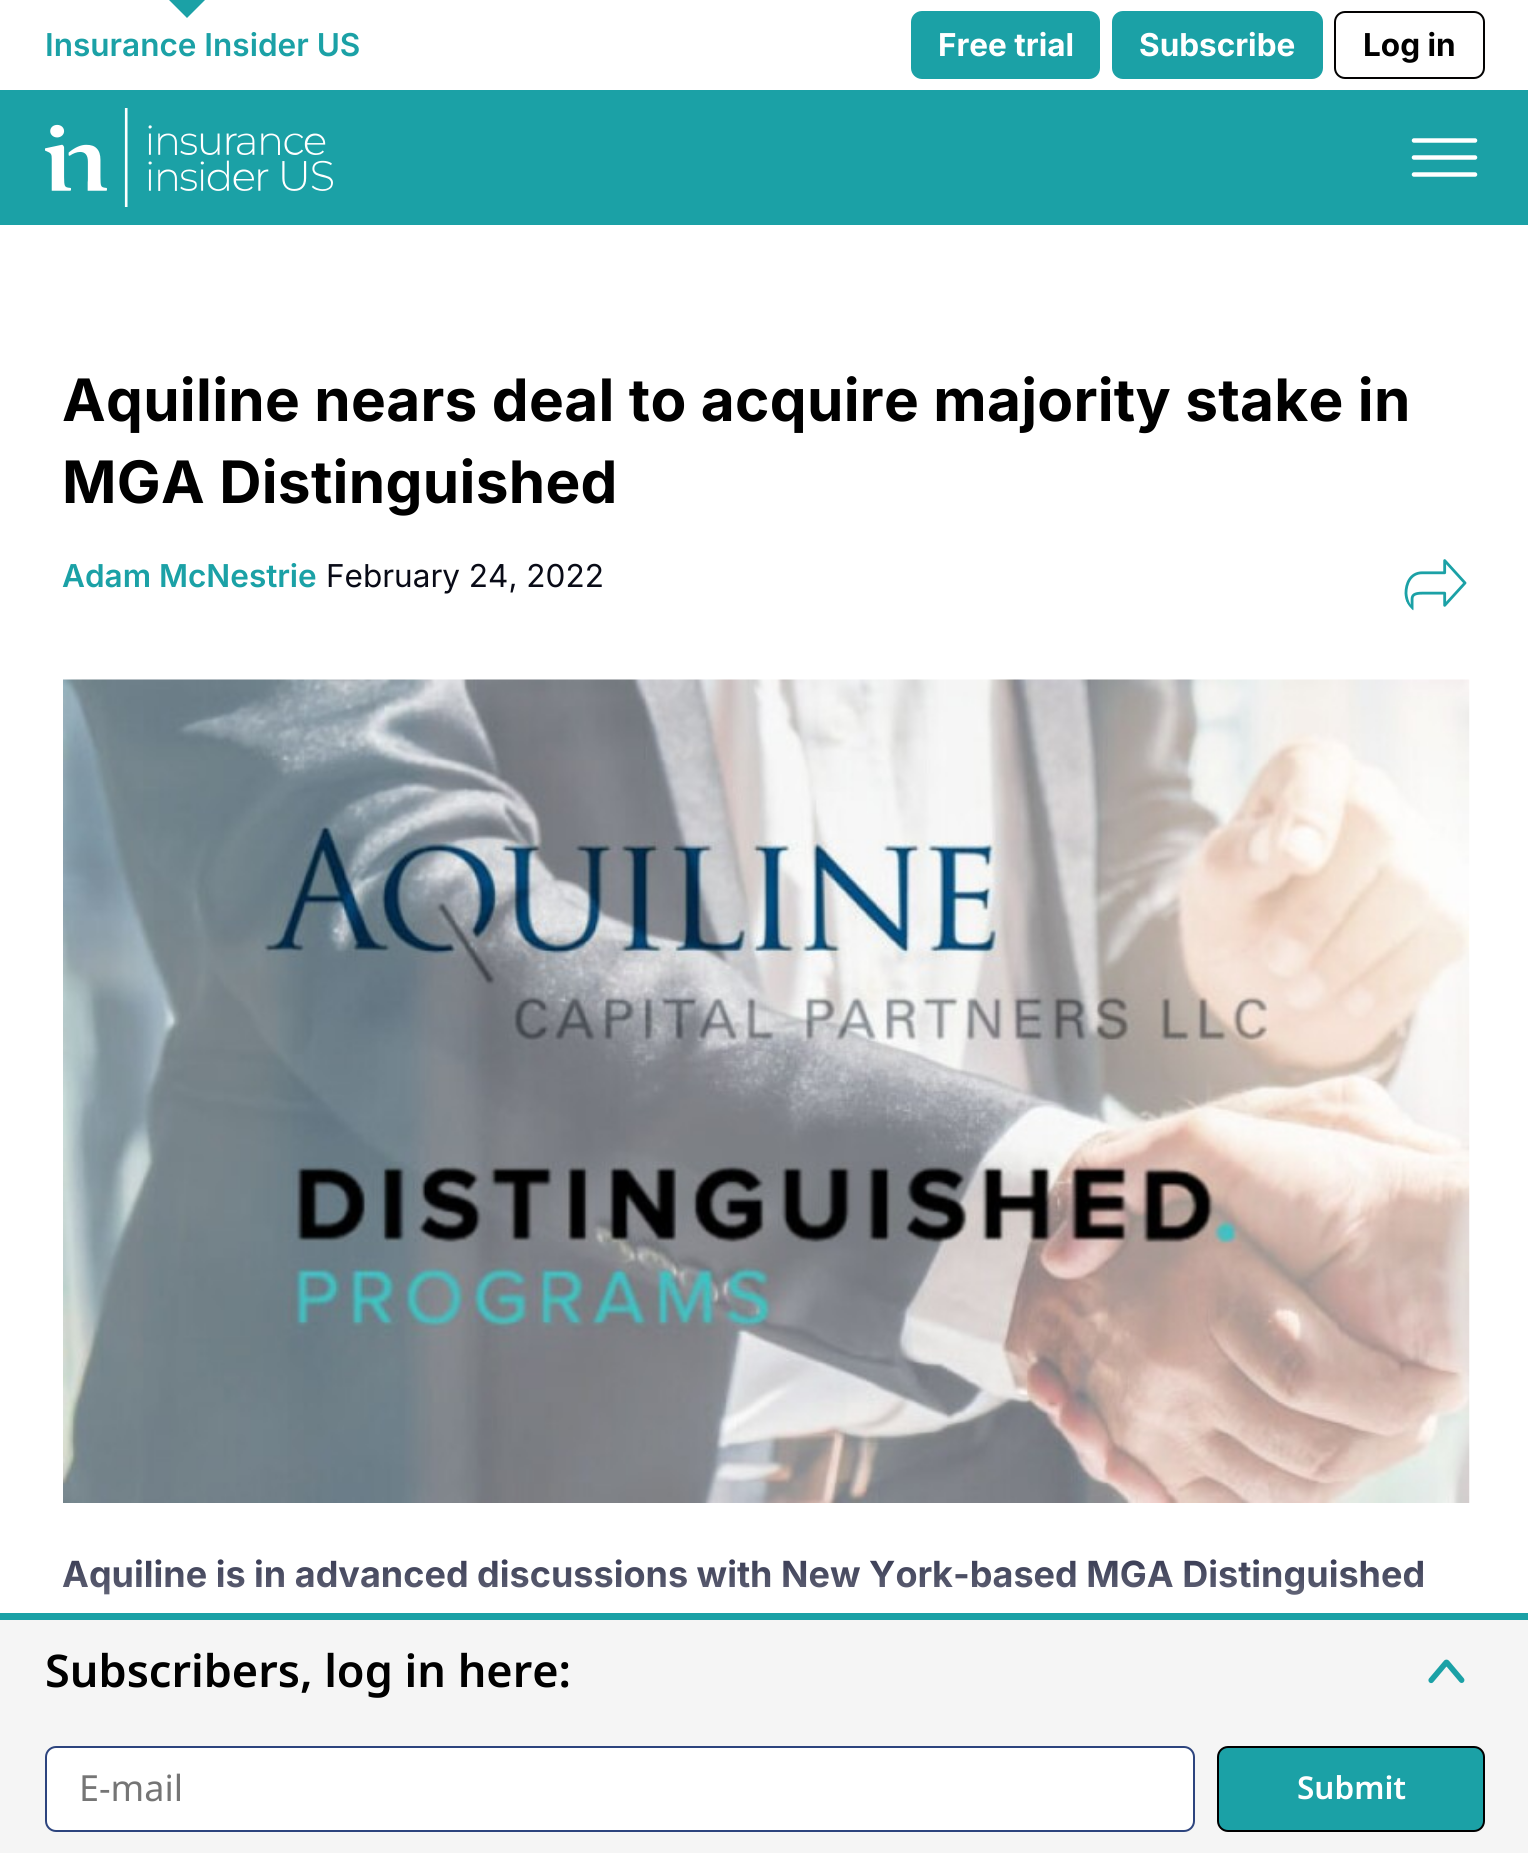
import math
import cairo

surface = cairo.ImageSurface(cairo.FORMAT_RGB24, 1528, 1853)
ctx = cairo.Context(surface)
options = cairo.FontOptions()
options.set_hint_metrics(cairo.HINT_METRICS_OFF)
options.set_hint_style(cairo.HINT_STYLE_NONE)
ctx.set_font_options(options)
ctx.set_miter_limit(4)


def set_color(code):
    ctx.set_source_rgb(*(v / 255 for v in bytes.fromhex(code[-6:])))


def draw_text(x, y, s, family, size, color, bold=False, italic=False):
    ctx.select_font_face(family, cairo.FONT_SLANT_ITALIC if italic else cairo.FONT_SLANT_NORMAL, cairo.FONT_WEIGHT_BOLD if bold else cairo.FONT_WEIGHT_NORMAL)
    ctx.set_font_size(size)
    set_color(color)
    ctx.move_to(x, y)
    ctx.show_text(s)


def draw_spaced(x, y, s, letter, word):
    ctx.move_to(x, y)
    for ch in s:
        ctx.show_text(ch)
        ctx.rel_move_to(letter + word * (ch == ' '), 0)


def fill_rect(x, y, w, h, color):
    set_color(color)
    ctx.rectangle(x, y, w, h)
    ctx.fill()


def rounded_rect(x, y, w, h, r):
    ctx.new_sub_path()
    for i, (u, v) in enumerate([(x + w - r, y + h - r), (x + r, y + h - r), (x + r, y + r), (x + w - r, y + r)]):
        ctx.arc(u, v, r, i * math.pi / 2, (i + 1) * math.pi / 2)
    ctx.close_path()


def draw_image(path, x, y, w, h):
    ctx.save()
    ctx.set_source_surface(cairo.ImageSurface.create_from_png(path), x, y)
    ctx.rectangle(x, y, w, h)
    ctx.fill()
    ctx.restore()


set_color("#ffffff")
ctx.paint()
set_color("#1ba1a6")
ctx.new_path()
ctx.move_to(169, 0)
ctx.line_to(205, 0)
ctx.line_to(187, 18)
ctx.close_path()
ctx.fill()
draw_text(45, 56, "Insurance Insider US", "Inter SemiBold", 31.5, "#1ba1a6")
rounded_rect(911, 11, 189, 68, 11)
ctx.fill()
draw_text(938, 56, "Free trial", "Inter", 31.5, "#ffffff", bold=True)
set_color("#1ba1a6")
rounded_rect(1112, 11, 211, 68, 11)
ctx.fill()
draw_text(1139, 56, "Subscribe", "Inter", 31.5, "#ffffff", bold=True)
rounded_rect(1335, 12, 149, 66, 10)
set_color("#030202")
ctx.stroke()
draw_text(1363, 56, "Log in", "Inter", 31.5, "#000000", bold=True)
fill_rect(0, 90, 1528, 135, "#1ba1a6")
draw_image("assets/img1.png", 45, 108, 288, 99)
ctx.new_path()
ctx.move_to(1475, 140.5)
ctx.line_to(1414, 140.5)
set_color("#ffffff")
ctx.set_line_width(4.5)
ctx.set_line_cap(cairo.LINE_CAP_ROUND)
ctx.set_line_join(cairo.LINE_JOIN_ROUND)
ctx.stroke()
ctx.new_path()
ctx.move_to(1475, 157.5)
ctx.line_to(1414, 157.5)
ctx.stroke()
ctx.new_path()
ctx.move_to(1475, 174.5)
ctx.line_to(1414, 174.5)
ctx.stroke()
ctx.set_font_size(58.5)
set_color("#000000")
draw_spaced(62, 421, "Aquiline nears deal to acquire majority stake in", 0.3, 0)
draw_spaced(62, 503, "MGA Distinguished", 0.3, 0)
draw_text(62, 587, "Adam McNestrie", "Inter SemiBold", 31.5, "#1ba1a6")
draw_text(326, 587, "February 24, 2022", "Inter", 31.5, "#090b17")
draw_image("assets/img2.png", 1404, 559, 63, 52)
draw_image("assets/img3.png", 63, 679, 1407, 824)
draw_text(62, 1587, "Aquiline is in advanced discussions with New York-based MGA Distinguished", "Inter", 36, "#2f324b", bold=True)
gradient = cairo.LinearGradient(766, 1744, 766, 1548)
gradient.add_color_stop_rgba(0, 1, 1, 1, 1)
gradient.add_color_stop_rgba(1, 1, 1, 1, 0)
ctx.set_source(gradient)
ctx.rectangle(63, 1559, 1360, 36)
ctx.fill()
fill_rect(0, 1620, 1528, 233, "#f5f5f5")
fill_rect(0, 1613, 1528, 7, "#1ba1a6")
draw_text(45, 1687, "Subscribers, log in here:", "Noto Sans SemiBold", 45, "#000000")
set_color("#ffffff")
rounded_rect(46, 1747, 1148, 84, 10)
ctx.fill_preserve()
set_color("#2d447e")
ctx.set_line_width(2)
ctx.set_line_cap(cairo.LINE_CAP_BUTT)
ctx.set_line_join(cairo.LINE_JOIN_MITER)
ctx.stroke()
draw_text(79, 1801, "E-mail", "Noto Sans", 36, "#757575")
set_color("#1ba1a6")
rounded_rect(1218, 1747, 266, 84, 10)
ctx.fill_preserve()
set_color("#000000")
ctx.stroke()
draw_text(1297, 1799, "Submit", "Noto Sans SemiBold", 31.5, "#ffffff")
draw_image("assets/img4.png", 1428, 1659, 37, 25)
surface.write_to_png("output.png")
